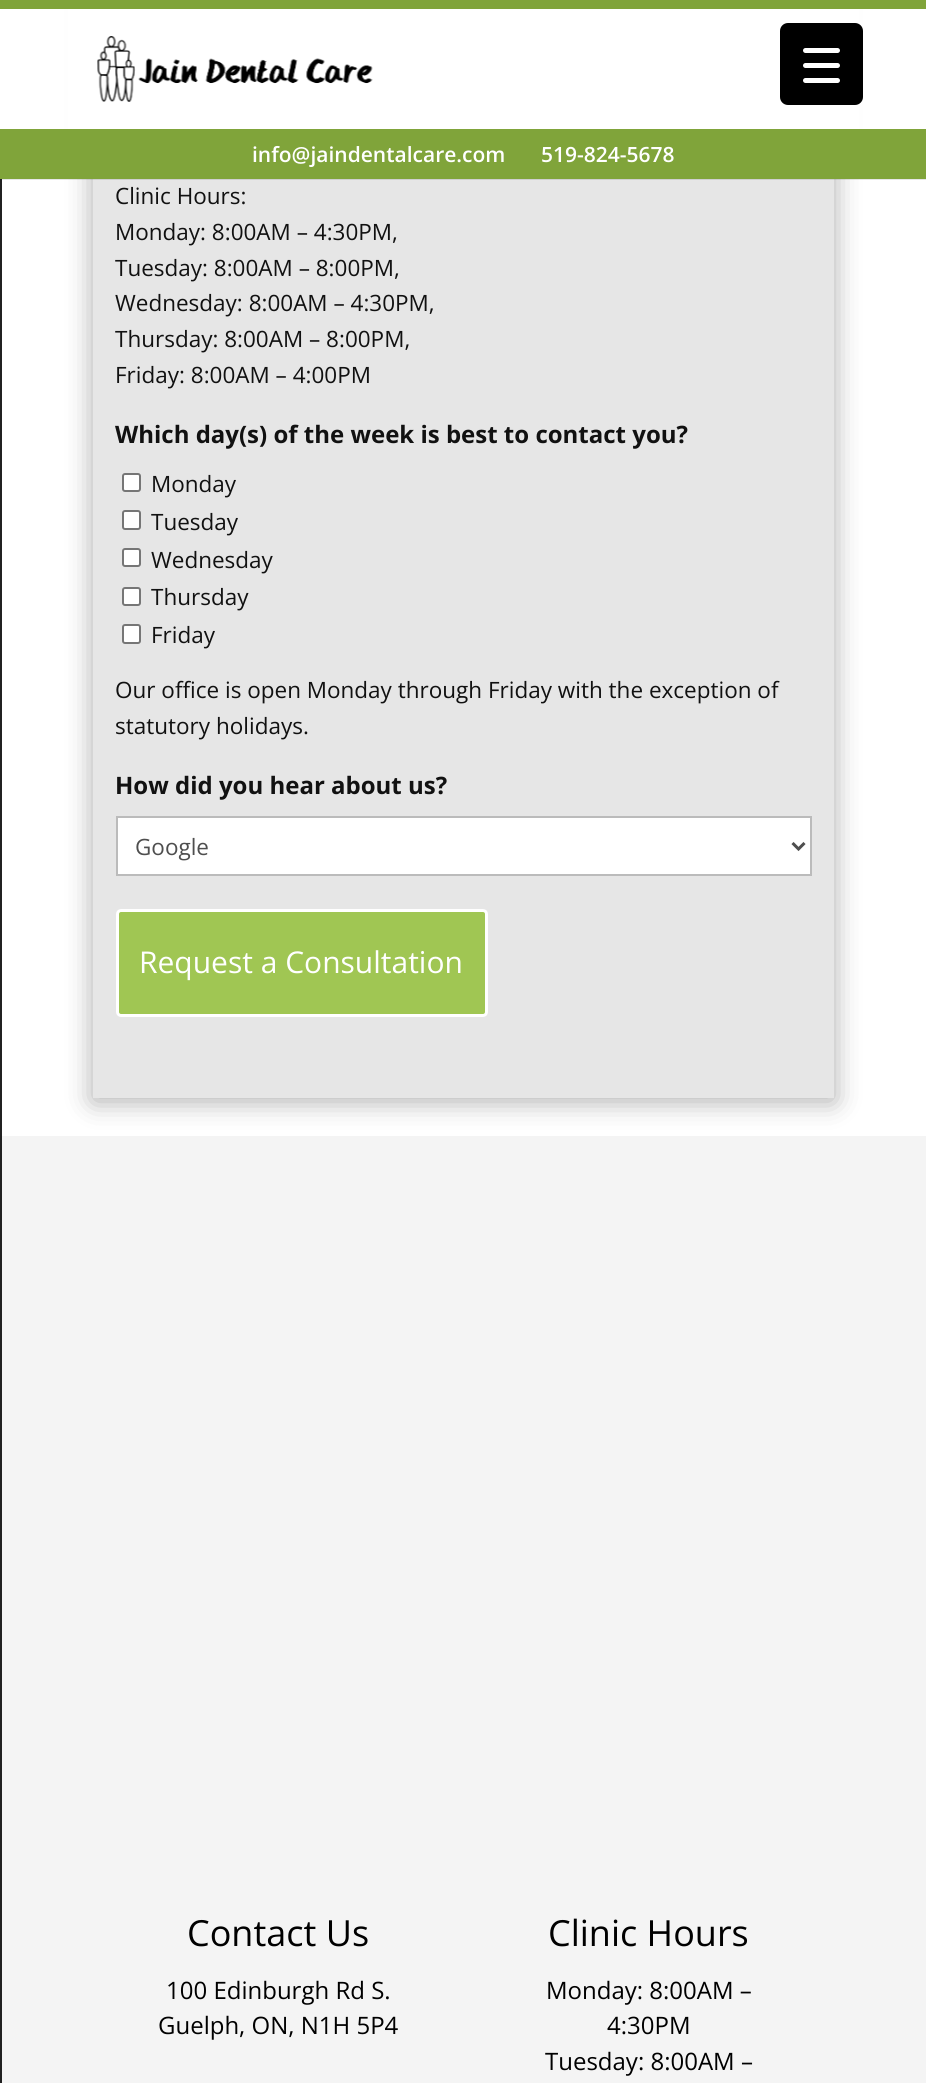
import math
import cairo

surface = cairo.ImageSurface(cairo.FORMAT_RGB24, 926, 2083)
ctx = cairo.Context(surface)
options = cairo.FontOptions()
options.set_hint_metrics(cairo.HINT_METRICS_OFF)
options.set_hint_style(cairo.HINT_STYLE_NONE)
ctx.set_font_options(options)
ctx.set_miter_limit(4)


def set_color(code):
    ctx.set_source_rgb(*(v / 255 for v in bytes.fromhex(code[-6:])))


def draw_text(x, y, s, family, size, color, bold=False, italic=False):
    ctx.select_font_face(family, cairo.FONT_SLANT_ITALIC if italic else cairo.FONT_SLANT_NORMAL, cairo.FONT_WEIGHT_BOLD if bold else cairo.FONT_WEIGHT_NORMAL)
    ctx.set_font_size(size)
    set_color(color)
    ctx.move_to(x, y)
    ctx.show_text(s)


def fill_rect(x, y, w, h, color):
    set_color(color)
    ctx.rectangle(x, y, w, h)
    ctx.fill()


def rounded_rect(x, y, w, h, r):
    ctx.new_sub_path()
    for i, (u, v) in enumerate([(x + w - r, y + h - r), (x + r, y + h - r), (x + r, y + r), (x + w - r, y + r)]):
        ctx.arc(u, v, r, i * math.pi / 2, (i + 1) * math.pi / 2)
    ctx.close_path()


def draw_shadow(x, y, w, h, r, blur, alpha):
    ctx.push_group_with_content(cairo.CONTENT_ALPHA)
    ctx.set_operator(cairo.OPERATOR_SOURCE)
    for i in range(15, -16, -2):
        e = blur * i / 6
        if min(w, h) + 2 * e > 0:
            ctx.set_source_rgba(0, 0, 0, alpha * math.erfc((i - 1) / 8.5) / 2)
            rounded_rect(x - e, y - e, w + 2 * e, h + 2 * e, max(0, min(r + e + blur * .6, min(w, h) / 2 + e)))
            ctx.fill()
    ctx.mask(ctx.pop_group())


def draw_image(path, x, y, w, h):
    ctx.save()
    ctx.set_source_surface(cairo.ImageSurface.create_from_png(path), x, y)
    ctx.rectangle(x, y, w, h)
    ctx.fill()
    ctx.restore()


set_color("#ffffff")
ctx.paint()
set_color("#000000")
draw_shadow(93, -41, 741, 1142, 0, 13.5, 0.33)
fill_rect(68, 9, 791, 120, "#ffffff")
set_color("#000000")
rounded_rect(780, 23, 83, 82, 8)
ctx.fill()
set_color("#ffffff")
rounded_rect(803, 63, 37, 5, 2.5)
ctx.fill()
rounded_rect(803, 48, 37, 5, 2.5)
ctx.fill()
rounded_rect(803, 78, 37, 5, 2.5)
ctx.fill()
fill_rect(0, 179, 2, 1904, "#212121")
fill_rect(93, 179, 741, 919, "#e6e6e6")
ctx.set_source_rgba(0, 0, 0, 0.1)
ctx.rectangle(0, 179, 926, 1)
ctx.fill()
fill_rect(0, 0, 926, 9, "#80a43a")
draw_image("assets/img1.png", 97, 36, 276, 66)
fill_rect(0, 129, 926, 50, "#80a43a")
draw_text(252, 162, "info@jaindentalcare.com", "Open Sans SemiBold", 21, "#ffffff")
draw_text(541, 162, "519-824-5678", "Open Sans SemiBold", 21, "#ffffff")
draw_text(115, 204, "Clinic Hours:", "Open Sans", 22.5, "#111111")
draw_text(115, 240, "Monday: 8:00AM – 4:30PM,", "Open Sans", 22.5, "#111111")
draw_text(115, 276, "Tuesday: 8:00AM – 8:00PM,", "Open Sans", 22.5, "#111111")
draw_text(115, 311, "Wednesday: 8:00AM – 4:30PM,", "Open Sans", 22.5, "#111111")
draw_text(115, 347, "Thursday: 8:00AM – 8:00PM,", "Open Sans", 22.5, "#111111")
draw_text(115, 383, "Friday: 8:00AM – 4:00PM", "Open Sans", 22.5, "#111111")
draw_text(115, 443, "Which day(s) of the week is best to contact you?", "Open Sans", 24, "#111111", bold=True)
set_color("#ffffff")
rounded_rect(123, 474, 17, 17, 2)
ctx.fill_preserve()
set_color("#767676")
ctx.stroke()
draw_text(151, 492, "Monday", "Open Sans", 22.5, "#111111")
set_color("#ffffff")
rounded_rect(123, 511, 17, 18, 2)
ctx.fill_preserve()
set_color("#767676")
ctx.stroke()
draw_text(151, 530, "Tuesday", "Open Sans", 22.5, "#111111")
set_color("#ffffff")
rounded_rect(123, 549, 17, 17, 2)
ctx.fill_preserve()
set_color("#767676")
ctx.stroke()
draw_text(151, 568, "Wednesday", "Open Sans", 22.5, "#111111")
set_color("#ffffff")
rounded_rect(123, 588, 17, 17, 2)
ctx.fill_preserve()
set_color("#767676")
ctx.stroke()
draw_text(151, 605, "Thursday", "Open Sans", 22.5, "#111111")
set_color("#ffffff")
rounded_rect(123, 625, 17, 18, 2)
ctx.fill_preserve()
set_color("#767676")
ctx.stroke()
draw_text(151, 643, "Friday", "Open Sans", 22.5, "#111111")
draw_text(115, 698, "Our office is open Monday through Friday with the exception of", "Open Sans", 22.5, "#111111")
draw_text(115, 734, "statutory holidays.", "Open Sans", 22.5, "#111111")
draw_text(115, 794, "How did you hear about us?", "Open Sans", 24, "#111111", bold=True)
set_color("#ffffff")
ctx.rectangle(117, 817, 694, 58)
ctx.fill_preserve()
set_color("#bbbbbb")
ctx.stroke()
ctx.new_path()
ctx.move_to(792.5, 843)
ctx.line_to(798.5, 849)
ctx.line_to(804.5, 843)
set_color("#4e4e4e")
ctx.set_line_width(3)
ctx.stroke()
draw_text(135, 855, "Google", "Open Sans", 22.5, "#4e4e4e")
set_color("#a0c653")
rounded_rect(117.5, 910.5, 369, 105, 3.5)
ctx.fill_preserve()
set_color("#ffffff")
ctx.stroke()
draw_text(139, 973, "Request a Consultation", "Open Sans", 30, "#ffffff")
fill_rect(2, 1136, 924, 947, "#f4f4f4")
draw_text(187, 1946, "Contact Us", "Open Sans", 36, "#000000")
draw_text(166, 1999, "100 Edinburgh Rd S.", "Open Sans", 24, "#000000")
draw_text(158, 2034, "Guelph, ON, N1H 5P4", "Open Sans", 24, "#000000")
draw_text(548, 1946, "Clinic Hours", "Open Sans", 36, "#000000")
draw_text(546, 1999, "Monday: 8:00AM –", "Open Sans", 24, "#000000")
draw_text(607, 2034, "4:30PM", "Open Sans", 24, "#000000")
draw_text(545, 2070, "Tuesday: 8:00AM –", "Open Sans", 24, "#000000")
surface.write_to_png("output.png")
